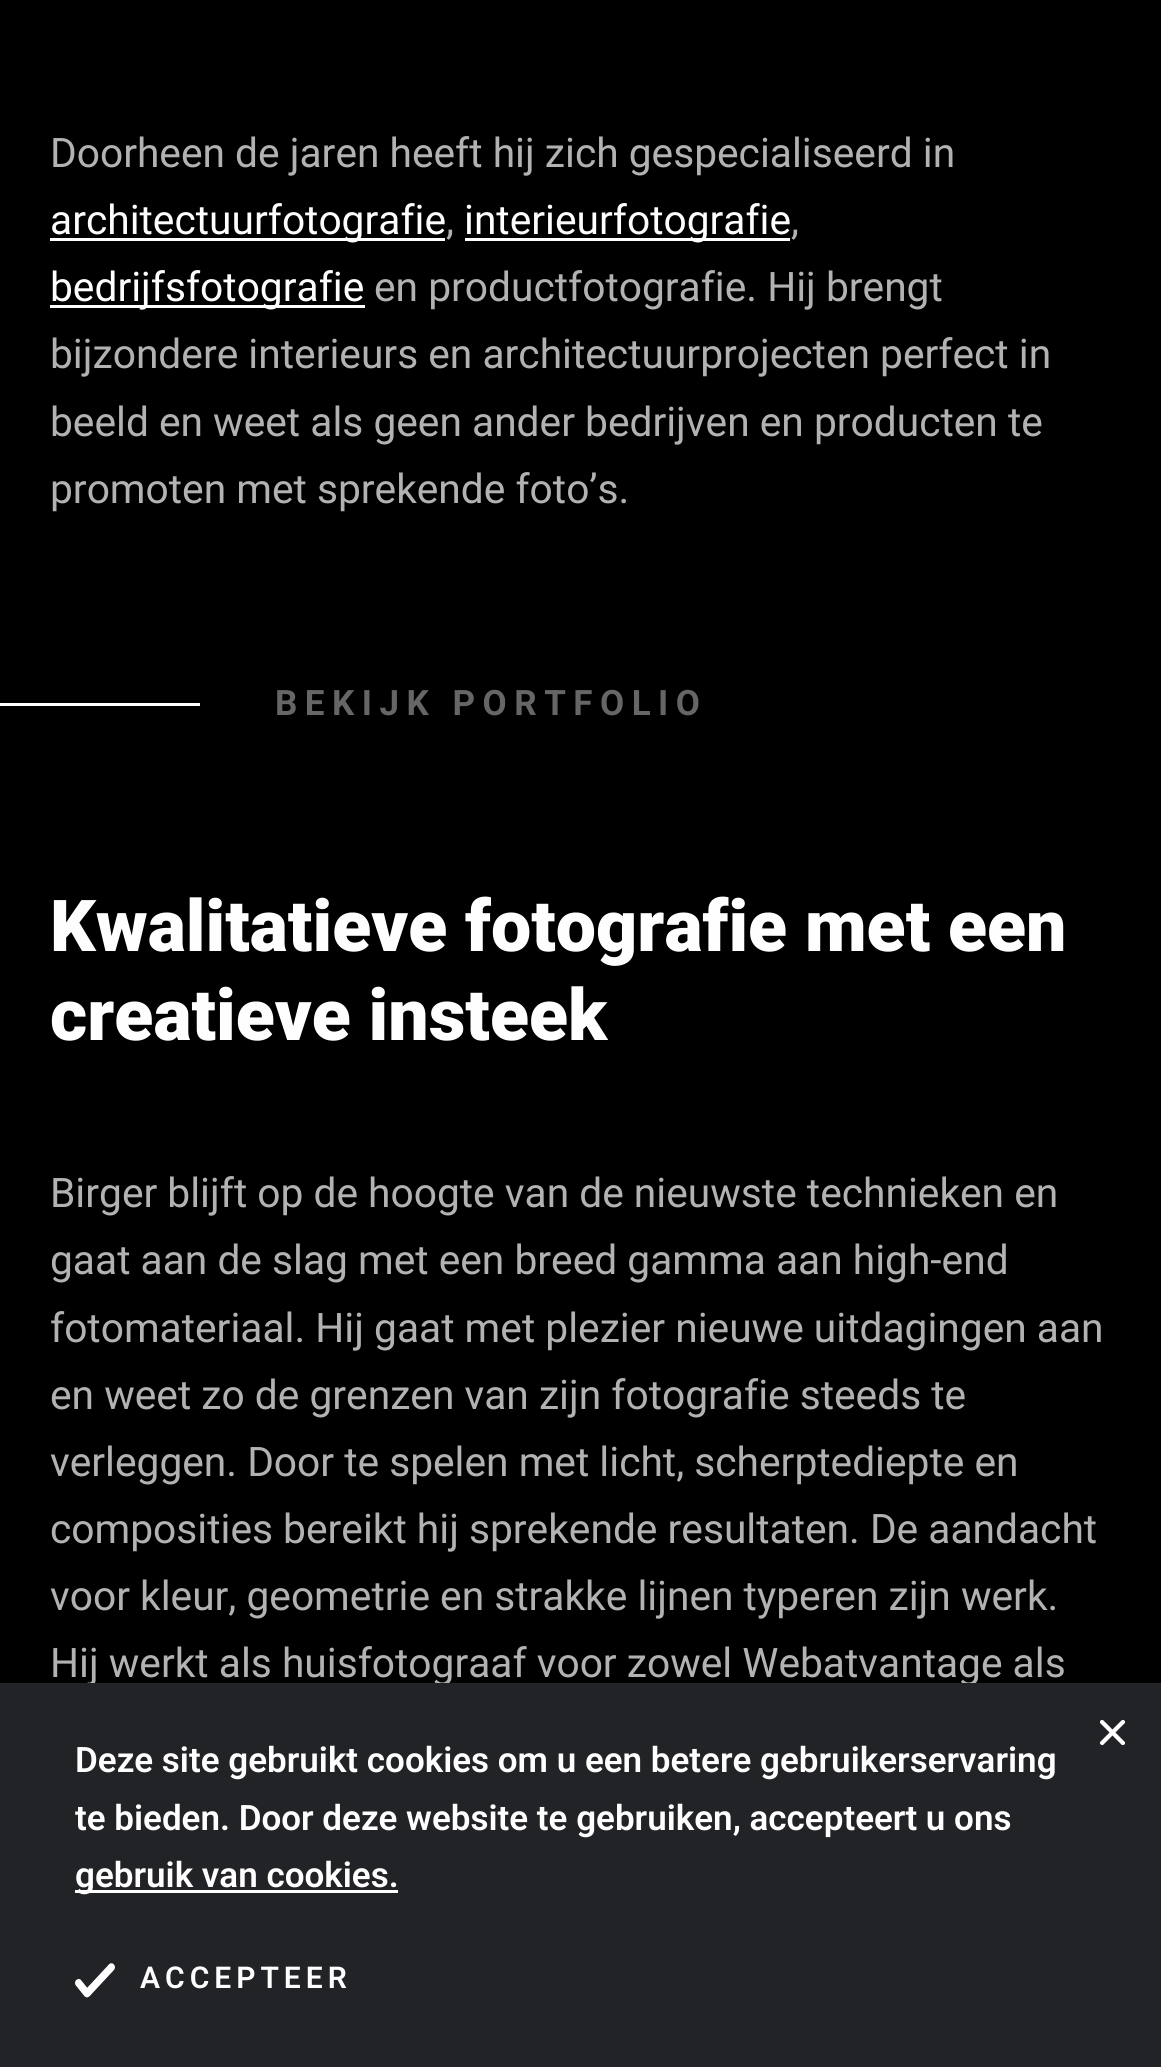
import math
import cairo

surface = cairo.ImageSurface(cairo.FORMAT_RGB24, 1161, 2067)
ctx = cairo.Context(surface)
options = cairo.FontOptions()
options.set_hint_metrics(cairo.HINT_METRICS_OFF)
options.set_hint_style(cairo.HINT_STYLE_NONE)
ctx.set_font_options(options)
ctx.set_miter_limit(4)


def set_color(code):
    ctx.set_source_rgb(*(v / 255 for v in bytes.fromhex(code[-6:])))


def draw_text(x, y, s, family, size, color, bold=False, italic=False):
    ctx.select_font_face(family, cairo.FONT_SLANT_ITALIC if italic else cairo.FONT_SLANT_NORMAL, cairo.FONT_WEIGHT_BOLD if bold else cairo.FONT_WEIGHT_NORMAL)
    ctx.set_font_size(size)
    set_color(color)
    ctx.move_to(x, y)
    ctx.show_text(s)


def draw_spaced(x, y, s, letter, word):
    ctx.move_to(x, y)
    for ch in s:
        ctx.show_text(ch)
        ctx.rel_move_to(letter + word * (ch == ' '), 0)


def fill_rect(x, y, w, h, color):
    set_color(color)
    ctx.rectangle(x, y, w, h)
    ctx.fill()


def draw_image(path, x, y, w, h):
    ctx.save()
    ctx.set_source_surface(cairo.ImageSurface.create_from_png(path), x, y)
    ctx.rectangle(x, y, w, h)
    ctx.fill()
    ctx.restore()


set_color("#000000")
ctx.paint()
draw_text(50, 167, "Doorheen de jaren heeft hij zich gespecialiseerd in", "Roboto", 40.7, "#b2b2b2")
fill_rect(50, 238, 395, 3, "#ffffff")
draw_text(50, 234, "architectuurfotografie", "Roboto", 40.7, "#fefefe")
draw_text(446, 234, ",", "Roboto", 40.7, "#b2b2b2")
fill_rect(465, 238, 325, 3, "#ffffff")
draw_text(464, 234, "interieurfotografie", "Roboto", 40.7, "#fefefe")
draw_text(791, 234, ",", "Roboto", 40.7, "#b2b2b2")
fill_rect(50, 305, 315, 3, "#ffffff")
draw_text(50, 301, "bedrijfsfotografie", "Roboto", 40.7, "#fefefe")
draw_text(374, 301, "en productfotografie. Hij brengt", "Roboto", 40.7, "#b2b2b2")
draw_text(50, 368, "bijzondere interieurs en architectuurprojecten perfect in", "Roboto", 40.7, "#b2b2b2")
draw_text(50, 436, "beeld en weet als geen ander bedrijven en producten te", "Roboto", 40.7, "#b2b2b2")
draw_text(50, 503, "promoten met sprekende foto’s.", "Roboto", 40.7, "#b2b2b2")
fill_rect(0, 703, 200, 3, "#ffffff")
ctx.select_font_face("Roboto", cairo.FONT_SLANT_NORMAL, cairo.FONT_WEIGHT_BOLD)
ctx.set_font_size(35)
set_color("#666666")
draw_spaced(275, 715, "BEKIJK PORTFOLIO", 7.5, 0)
draw_text(50, 951, "Kwalitatieve fotografie met een", "Roboto Black", 71.6, "#fefefe")
draw_text(50, 1040, "creatieve insteek", "Roboto Black", 71.6, "#fefefe")
draw_text(50, 1207, "Birger blijft op de hoogte van de nieuwste technieken en", "Roboto", 40.7, "#b2b2b2")
draw_text(50, 1274, "gaat aan de slag met een breed gamma aan high-end", "Roboto", 40.7, "#b2b2b2")
draw_text(50, 1342, "fotomateriaal. Hij gaat met plezier nieuwe uitdagingen aan", "Roboto", 40.7, "#b2b2b2")
draw_text(50, 1409, "en weet zo de grenzen van zijn fotografie steeds te", "Roboto", 40.7, "#b2b2b2")
draw_text(50, 1476, "verleggen. Door te spelen met licht, scherptediepte en", "Roboto", 40.7, "#b2b2b2")
draw_text(50, 1543, "composities bereikt hij sprekende resultaten. De aandacht", "Roboto", 40.7, "#b2b2b2")
draw_text(50, 1610, "voor kleur, geometrie en strakke lijnen typeren zijn werk.", "Roboto", 40.7, "#b2b2b2")
draw_text(50, 1677, "Hij werkt als huisfotograaf voor zowel Webatvantage als", "Roboto", 40.7, "#b2b2b2")
fill_rect(0, 1683, 1161, 384, "#222326")
draw_image("assets/img1.png", 1100, 1720, 25, 25)
draw_text(75, 1772, "Deze site gebruikt cookies om u een betere gebruikerservaring", "Roboto SemiBold", 35, "#fefefe")
draw_text(75, 1830, "te bieden. Door deze website te gebruiken, accepteert u ons", "Roboto SemiBold", 35, "#fefefe")
fill_rect(75, 1890, 323, 3, "#ffffff")
draw_text(75, 1887, "gebruik van cookies.", "Roboto SemiBold", 35, "#fefefe")
draw_image("assets/img2.png", 75, 1963, 40, 35)
ctx.set_font_size(30)
draw_spaced(140, 1988, "ACCEPTEER", 5, 0)
surface.write_to_png("output.png")
